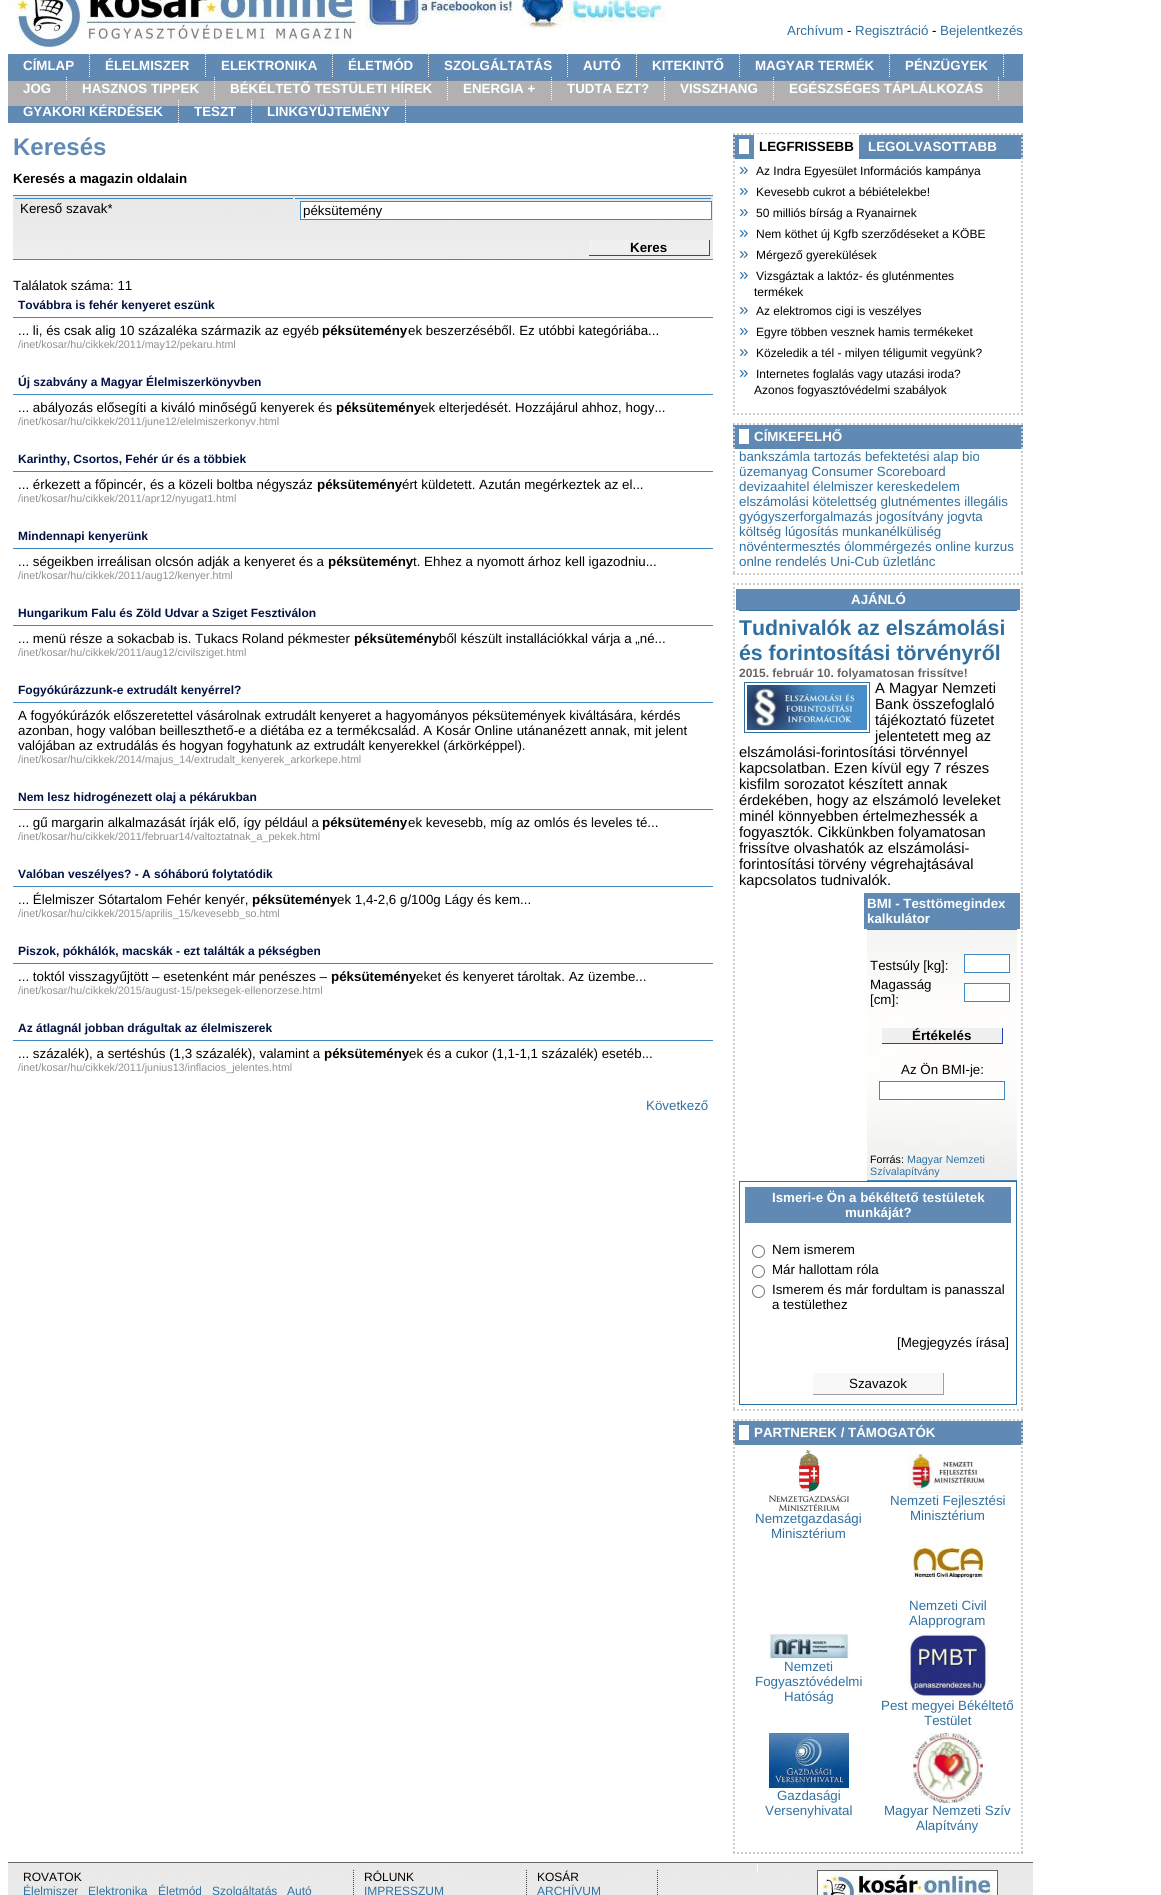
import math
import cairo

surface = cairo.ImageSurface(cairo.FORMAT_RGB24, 1161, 1895)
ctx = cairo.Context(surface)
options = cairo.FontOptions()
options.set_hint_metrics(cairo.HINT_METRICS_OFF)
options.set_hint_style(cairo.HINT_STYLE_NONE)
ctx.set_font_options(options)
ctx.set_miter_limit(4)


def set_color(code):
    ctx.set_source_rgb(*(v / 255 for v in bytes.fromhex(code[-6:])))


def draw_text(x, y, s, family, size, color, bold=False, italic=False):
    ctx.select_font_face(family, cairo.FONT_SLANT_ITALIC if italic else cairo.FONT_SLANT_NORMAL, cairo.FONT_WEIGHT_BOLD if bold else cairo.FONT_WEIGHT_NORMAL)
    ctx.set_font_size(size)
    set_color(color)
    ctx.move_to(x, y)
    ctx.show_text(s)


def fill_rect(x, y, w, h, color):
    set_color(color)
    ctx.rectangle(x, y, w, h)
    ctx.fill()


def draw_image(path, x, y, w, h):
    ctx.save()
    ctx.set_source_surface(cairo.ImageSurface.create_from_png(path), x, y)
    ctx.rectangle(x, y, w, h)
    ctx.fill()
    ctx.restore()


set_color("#ffffff")
ctx.paint()
draw_image("assets/img1.png", 8, 0, 352, 54)
draw_image("assets/img2.png", 366, 0, 147, 29)
draw_image("assets/img3.png", 521, 0, 144, 29)
draw_text(787, 35, "Archívum", "Liberation Sans", 13.33, "#3070a1")
draw_text(847, 35, "-", "Liberation Sans", 13.33, "#000000")
draw_text(855, 35, "Regisztráció", "Liberation Sans", 13.33, "#3070a1")
draw_text(932, 35, "-", "Liberation Sans", 13.33, "#000000")
draw_text(940, 35, "Bejelentkezés", "Liberation Sans", 13.33, "#3070a1")
draw_image("assets/img4.png", 8, 54, 1015, 69)
ctx.new_path()
ctx.move_to(89.5, 54)
ctx.line_to(89.5, 77)
set_color("#ffffff")
ctx.set_line_width(1)
ctx.set_dash([1, 1])
ctx.stroke()
draw_text(23, 70, "CÍMLAP", "Liberation Sans", 13.33, "#ffffff", bold=True)
ctx.new_path()
ctx.move_to(205.5, 54)
ctx.line_to(205.5, 77)
ctx.stroke()
draw_text(105, 70, "ÉLELMISZER", "Liberation Sans", 13.33, "#ffffff", bold=True)
ctx.new_path()
ctx.move_to(332.5, 54)
ctx.line_to(332.5, 77)
ctx.stroke()
draw_text(221, 70, "ELEKTRONIKA", "Liberation Sans", 13.33, "#ffffff", bold=True)
ctx.new_path()
ctx.move_to(428.5, 54)
ctx.line_to(428.5, 77)
ctx.stroke()
draw_text(348, 70, "ÉLETMÓD", "Liberation Sans", 13.33, "#ffffff", bold=True)
ctx.new_path()
ctx.move_to(567.5, 54)
ctx.line_to(567.5, 77)
ctx.stroke()
draw_text(444, 70, "SZOLGÁLTATÁS", "Liberation Sans", 13.33, "#ffffff", bold=True)
ctx.new_path()
ctx.move_to(636.5, 54)
ctx.line_to(636.5, 77)
ctx.stroke()
draw_text(583, 70, "AUTÓ", "Liberation Sans", 13.33, "#ffffff", bold=True)
ctx.new_path()
ctx.move_to(739.5, 54)
ctx.line_to(739.5, 77)
ctx.stroke()
draw_text(652, 70, "KITEKINTŐ", "Liberation Sans", 13.33, "#ffffff", bold=True)
ctx.new_path()
ctx.move_to(889.5, 54)
ctx.line_to(889.5, 77)
ctx.stroke()
draw_text(755, 70, "MAGYAR TERMÉK", "Liberation Sans", 13.33, "#ffffff", bold=True)
ctx.new_path()
ctx.move_to(1003.5, 54)
ctx.line_to(1003.5, 77)
ctx.stroke()
draw_text(905, 70, "PÉNZÜGYEK", "Liberation Sans", 13.33, "#ffffff", bold=True)
ctx.new_path()
ctx.move_to(66.5, 77)
ctx.line_to(66.5, 100)
ctx.stroke()
draw_text(23, 93, "JOG", "Liberation Sans", 13.33, "#ffffff", bold=True)
ctx.new_path()
ctx.move_to(214.5, 77)
ctx.line_to(214.5, 100)
ctx.stroke()
draw_text(82, 93, "HASZNOS TIPPEK", "Liberation Sans", 13.33, "#ffffff", bold=True)
ctx.new_path()
ctx.move_to(447.5, 77)
ctx.line_to(447.5, 100)
ctx.stroke()
draw_text(230, 93, "BÉKÉLTETŐ TESTÜLETI HÍREK", "Liberation Sans", 13.33, "#ffffff", bold=True)
ctx.new_path()
ctx.move_to(551.5, 77)
ctx.line_to(551.5, 100)
ctx.stroke()
draw_text(463, 93, "ENERGIA +", "Liberation Sans", 13.33, "#ffffff", bold=True)
ctx.new_path()
ctx.move_to(664.5, 77)
ctx.line_to(664.5, 100)
ctx.stroke()
draw_text(567, 93, "TUDTA EZT?", "Liberation Sans", 13.33, "#ffffff", bold=True)
ctx.new_path()
ctx.move_to(773.5, 77)
ctx.line_to(773.5, 100)
ctx.stroke()
draw_text(680, 93, "VISSZHANG", "Liberation Sans", 13.33, "#ffffff", bold=True)
ctx.new_path()
ctx.move_to(998.5, 77)
ctx.line_to(998.5, 100)
ctx.stroke()
draw_text(789, 93, "EGÉSZSÉGES TÁPLÁLKOZÁS", "Liberation Sans", 13.33, "#ffffff", bold=True)
ctx.new_path()
ctx.move_to(178.5, 100)
ctx.line_to(178.5, 123)
ctx.stroke()
draw_text(23, 116, "GYAKORI KÉRDÉSEK", "Liberation Sans", 13.33, "#ffffff", bold=True)
ctx.new_path()
ctx.move_to(251.5, 100)
ctx.line_to(251.5, 123)
ctx.stroke()
draw_text(194, 116, "TESZT", "Liberation Sans", 13.33, "#ffffff", bold=True)
ctx.new_path()
ctx.move_to(405.5, 100)
ctx.line_to(405.5, 123)
ctx.stroke()
draw_text(267, 116, "LINKGYÜJTEMÉNY", "Liberation Sans", 13.33, "#ffffff", bold=True)
draw_text(13, 155, "Keresés", "Liberation Sans", 24, "#608ab4", bold=True)
draw_text(13, 183, "Keresés a magazin oldalain", "Liberation Sans", 13.33, "#000000", bold=True)
draw_image("assets/img5.png", 13, 196, 700, 63)
fill_rect(13, 195, 700, 1, "#4088c1")
fill_rect(13, 259, 700, 1, "#4088c1")
fill_rect(15, 198, 278, 1, "#4088c1")
draw_text(20, 213, "Kereső szavak*", "Liberation Sans", 13.33, "#000000")
fill_rect(295, 198, 416, 1, "#4088c1")
set_color("#ffffff")
ctx.rectangle(300.5, 201.5, 411, 18)
ctx.fill_preserve()
set_color("#4088c1")
ctx.set_dash([])
ctx.stroke()
draw_text(303, 215, "péksütemény", "Liberation Sans", 13.33, "#000000")
fill_rect(589, 240, 120, 12, "#f0f0f0")
fill_rect(709, 240, 1, 16, "#2044c1")
fill_rect(589, 255, 121, 1, "#2044c1")
draw_text(630, 252, "Keres", "Liberation Sans", 13.33, "#000000", bold=True)
draw_text(13, 290, "Találatok száma: 11", "Liberation Sans", 13.33, "#000000")
fill_rect(13, 317, 700, 1, "#4088c1")
draw_text(18, 309, "Továbbra is fehér kenyeret eszünk", "Liberation Sans", 12, "#021343", bold=True)
draw_text(18, 335, "... li, és csak alig 10 százaléka származik az egyéb", "Liberation Sans", 13.33, "#000000")
draw_text(322, 335, "péksütemény", "Liberation Sans", 13.33, "#000000", bold=True)
draw_text(408, 335, "ek beszerzéséből. Ez utóbbi kategóriába...", "Liberation Sans", 13.33, "#000000")
draw_text(18, 348, "/inet/kosar/hu/cikkek/2011/may12/pekaru.html", "Liberation Sans", 10.7, "#909090")
fill_rect(13, 394, 700, 1, "#4088c1")
draw_text(18, 386, "Új szabvány a Magyar Élelmiszerkönyvben", "Liberation Sans", 12, "#021343", bold=True)
draw_text(18, 412, "... abályozás elősegíti a kiváló minőségű kenyerek és", "Liberation Sans", 13.33, "#000000")
draw_text(336, 412, "péksütemény", "Liberation Sans", 13.33, "#000000", bold=True)
draw_text(421, 412, "ek elterjedését. Hozzájárul ahhoz, hogy...", "Liberation Sans", 13.33, "#000000")
draw_text(18, 425, "/inet/kosar/hu/cikkek/2011/june12/elelmiszerkonyv.html", "Liberation Sans", 10.7, "#909090")
fill_rect(13, 471, 700, 1, "#4088c1")
draw_text(18, 463, "Karinthy, Csortos, Fehér úr és a többiek", "Liberation Sans", 12, "#021343", bold=True)
draw_text(18, 489, "... érkezett a főpincér, és a közeli boltba négyszáz", "Liberation Sans", 13.33, "#000000")
draw_text(317, 489, "péksütemény", "Liberation Sans", 13.33, "#000000", bold=True)
draw_text(402, 489, "ért küldetett. Azután megérkeztek az el...", "Liberation Sans", 13.33, "#000000")
draw_text(18, 502, "/inet/kosar/hu/cikkek/2011/apr12/nyugat1.html", "Liberation Sans", 10.7, "#909090")
fill_rect(13, 548, 700, 1, "#4088c1")
draw_text(18, 540, "Mindennapi kenyerünk", "Liberation Sans", 12, "#021343", bold=True)
draw_text(18, 566, "... ségeikben irreálisan olcsón adják a kenyeret és a", "Liberation Sans", 13.33, "#000000")
draw_text(328, 566, "péksütemény", "Liberation Sans", 13.33, "#000000", bold=True)
draw_text(413, 566, "t. Ehhez a nyomott árhoz kell igazodniu...", "Liberation Sans", 13.33, "#000000")
draw_text(18, 579, "/inet/kosar/hu/cikkek/2011/aug12/kenyer.html", "Liberation Sans", 10.7, "#909090")
fill_rect(13, 625, 700, 1, "#4088c1")
draw_text(18, 617, "Hungarikum Falu és Zöld Udvar a Sziget Fesztiválon", "Liberation Sans", 12, "#021343", bold=True)
draw_text(18, 643, "... menü része a sokacbab is. Tukacs Roland pékmester", "Liberation Sans", 13.33, "#000000")
draw_text(354, 643, "péksütemény", "Liberation Sans", 13.33, "#000000", bold=True)
draw_text(439, 643, "ből készült installációkkal várja a „né...", "Liberation Sans", 13.33, "#000000")
draw_text(18, 656, "/inet/kosar/hu/cikkek/2011/aug12/civilsziget.html", "Liberation Sans", 10.7, "#909090")
fill_rect(13, 702, 700, 1, "#4088c1")
draw_text(18, 694, "Fogyókúrázzunk-e extrudált kenyérrel?", "Liberation Sans", 12, "#021343", bold=True)
draw_text(18, 720, "A fogyókúrázók előszeretettel vásárolnak extrudált kenyeret a hagyományos péksütemények kiváltására, kérdés", "Liberation Sans", 13.33, "#000000")
draw_text(18, 735, "azonban, hogy valóban beilleszthető-e a diétába ez a termékcsalád. A Kosár Online utánanézett annak, mit jelent", "Liberation Sans", 13.33, "#000000")
draw_text(18, 750, "valójában az extrudálás és hogyan fogyhatunk az extrudált kenyerekkel (árkörképpel).", "Liberation Sans", 13.33, "#000000")
draw_text(18, 763, "/inet/kosar/hu/cikkek/2014/majus_14/extrudalt_kenyerek_arkorkepe.html", "Liberation Sans", 10.7, "#909090")
fill_rect(13, 809, 700, 1, "#4088c1")
draw_text(18, 801, "Nem lesz hidrogénezett olaj a pékárukban", "Liberation Sans", 12, "#021343", bold=True)
draw_text(18, 827, "... gű margarin alkalmazását írják elő, így például a", "Liberation Sans", 13.33, "#000000")
draw_text(322, 827, "péksütemény", "Liberation Sans", 13.33, "#000000", bold=True)
draw_text(408, 827, "ek kevesebb, míg az omlós és leveles té...", "Liberation Sans", 13.33, "#000000")
draw_text(18, 840, "/inet/kosar/hu/cikkek/2011/februar14/valtoztatnak_a_pekek.html", "Liberation Sans", 10.7, "#909090")
fill_rect(13, 886, 700, 1, "#4088c1")
draw_text(18, 878, "Valóban veszélyes? - A sóháború folytatódik", "Liberation Sans", 12, "#021343", bold=True)
draw_text(18, 904, "... Élelmiszer Sótartalom Fehér kenyér,", "Liberation Sans", 13.33, "#000000")
draw_text(252, 904, "péksütemény", "Liberation Sans", 13.33, "#000000", bold=True)
draw_text(337, 904, "ek 1,4-2,6 g/100g Lágy és kem...", "Liberation Sans", 13.33, "#000000")
draw_text(18, 917, "/inet/kosar/hu/cikkek/2015/aprilis_15/kevesebb_so.html", "Liberation Sans", 10.7, "#909090")
fill_rect(13, 963, 700, 1, "#4088c1")
draw_text(18, 955, "Piszok, pókhálók, macskák - ezt találták a pékségben", "Liberation Sans", 12, "#021343", bold=True)
draw_text(18, 981, "... toktól visszagyűjtött – esetenként már penészes –", "Liberation Sans", 13.33, "#000000")
draw_text(331, 981, "péksütemény", "Liberation Sans", 13.33, "#000000", bold=True)
draw_text(416, 981, "eket és kenyeret tároltak. Az üzembe...", "Liberation Sans", 13.33, "#000000")
draw_text(18, 994, "/inet/kosar/hu/cikkek/2015/august-15/peksegek-ellenorzese.html", "Liberation Sans", 10.7, "#909090")
fill_rect(13, 1040, 700, 1, "#4088c1")
draw_text(18, 1032, "Az átlagnál jobban drágultak az élelmiszerek", "Liberation Sans", 12, "#021343", bold=True)
draw_text(18, 1058, "... százalék), a sertéshús (1,3 százalék), valamint a", "Liberation Sans", 13.33, "#000000")
draw_text(324, 1058, "péksütemény", "Liberation Sans", 13.33, "#000000", bold=True)
draw_text(409, 1058, "ek és a cukor (1,1-1,1 százalék) esetéb...", "Liberation Sans", 13.33, "#000000")
draw_text(18, 1071, "/inet/kosar/hu/cikkek/2011/junius13/inflacios_jelentes.html", "Liberation Sans", 10.7, "#909090")
draw_text(646, 1110, "Következő", "Liberation Sans", 13.33, "#3070a1")
draw_image("assets/img6.png", 733, 135, 290, 24)
ctx.new_path()
ctx.move_to(733, 134)
ctx.line_to(1023, 134)
set_color("#cccccc")
ctx.set_line_width(2)
ctx.set_dash([2, 2])
ctx.stroke()
ctx.new_path()
ctx.move_to(1022, 133)
ctx.line_to(1022, 415)
ctx.stroke()
ctx.new_path()
ctx.move_to(733, 414)
ctx.line_to(1023, 414)
ctx.stroke()
ctx.new_path()
ctx.move_to(734, 133)
ctx.line_to(734, 415)
ctx.stroke()
fill_rect(739, 139, 10, 15, "#ffffff")
fill_rect(754, 134, 105, 25, "#ffffff")
draw_text(759, 151, "LEGFRISSEBB", "Liberation Sans", 13.33, "#000000", bold=True)
draw_text(868, 151, "LEGOLVASOTTABB", "Liberation Sans", 13.33, "#ffffff", bold=True)
draw_text(739, 175, "»", "Liberation Sans", 17, "#3070a1")
draw_text(756, 175, "Az Indra Egyesület Információs kampánya", "Liberation Sans", 12, "#000000")
draw_text(739, 196, "»", "Liberation Sans", 17, "#3070a1")
draw_text(756, 196, "Kevesebb cukrot a bébiételekbe!", "Liberation Sans", 12, "#000000")
draw_text(739, 217, "»", "Liberation Sans", 17, "#3070a1")
draw_text(756, 217, "50 milliós bírság a Ryanairnek", "Liberation Sans", 12, "#000000")
draw_text(739, 238, "»", "Liberation Sans", 17, "#3070a1")
draw_text(756, 238, "Nem köthet új Kgfb szerződéseket a KÖBE", "Liberation Sans", 12, "#000000")
draw_text(739, 259, "»", "Liberation Sans", 17, "#3070a1")
draw_text(756, 259, "Mérgező gyerekülések", "Liberation Sans", 12, "#000000")
draw_text(739, 280, "»", "Liberation Sans", 17, "#3070a1")
draw_text(756, 280, "Vizsgáztak a laktóz- és gluténmentes", "Liberation Sans", 12, "#000000")
draw_text(754, 296, "termékek", "Liberation Sans", 12, "#000000")
draw_text(739, 315, "»", "Liberation Sans", 17, "#3070a1")
draw_text(756, 315, "Az elektromos cigi is veszélyes", "Liberation Sans", 12, "#000000")
draw_text(739, 336, "»", "Liberation Sans", 17, "#3070a1")
draw_text(756, 336, "Egyre többen vesznek hamis termékeket", "Liberation Sans", 12, "#000000")
draw_text(739, 357, "»", "Liberation Sans", 17, "#3070a1")
draw_text(756, 357, "Közeledik a tél - milyen téligumit vegyünk?", "Liberation Sans", 12, "#000000")
draw_text(739, 378, "»", "Liberation Sans", 17, "#3070a1")
draw_text(756, 378, "Internetes foglalás vagy utazási iroda?", "Liberation Sans", 12, "#000000")
draw_text(754, 394, "Azonos fogyasztóvédelmi szabályok", "Liberation Sans", 12, "#000000")
draw_image("assets/img6.png", 733, 425, 290, 24)
ctx.new_path()
ctx.move_to(733, 424)
ctx.line_to(1023, 424)
set_color("#cccccc")
ctx.stroke()
ctx.new_path()
ctx.move_to(1022, 423)
ctx.line_to(1022, 575)
ctx.stroke()
ctx.new_path()
ctx.move_to(733, 574)
ctx.line_to(1023, 574)
ctx.stroke()
ctx.new_path()
ctx.move_to(734, 423)
ctx.line_to(734, 575)
ctx.stroke()
fill_rect(739, 429, 10, 15, "#ffffff")
draw_text(754, 441, "CÍMKEFELHŐ", "Liberation Sans", 13.33, "#ffffff", bold=True)
draw_text(739, 461, "bankszámla tartozás befektetési alap bio", "Liberation Sans", 13.33, "#3070a1")
draw_text(739, 476, "üzemanyag Consumer Scoreboard", "Liberation Sans", 13.33, "#3070a1")
draw_text(739, 491, "devizaahitel élelmiszer kereskedelem", "Liberation Sans", 13.33, "#3070a1")
draw_text(739, 506, "elszámolási kötelettség glutnémentes illegális", "Liberation Sans", 13.33, "#3070a1")
draw_text(739, 521, "gyógyszerforgalmazás jogosítvány jogvta", "Liberation Sans", 13.33, "#3070a1")
draw_text(739, 536, "költség lúgosítás munkanélküliség", "Liberation Sans", 13.33, "#3070a1")
draw_text(739, 551, "növéntermesztés ólommérgezés online kurzus", "Liberation Sans", 13.33, "#3070a1")
draw_text(739, 566, "onlne rendelés Uni-Cub üzletlánc", "Liberation Sans", 13.33, "#3070a1")
ctx.new_path()
ctx.move_to(733, 584)
ctx.line_to(1023, 584)
set_color("#cccccc")
ctx.stroke()
ctx.new_path()
ctx.move_to(1022, 583)
ctx.line_to(1022, 1411)
ctx.stroke()
ctx.new_path()
ctx.move_to(733, 1410)
ctx.line_to(1023, 1410)
ctx.stroke()
ctx.new_path()
ctx.move_to(734, 583)
ctx.line_to(734, 1411)
ctx.stroke()
fill_rect(736, 589, 284, 21, "#608ab4")
draw_text(851, 604, "AJÁNLÓ", "Liberation Sans", 13.33, "#ffffff", bold=True)
fill_rect(739, 610, 278, 1, "#3070a1")
draw_text(739, 635, "Tudnivalók az elszámolási", "Liberation Sans", 21.3, "#3070a1", bold=True)
draw_text(739, 660, "és forintosítási törvényről", "Liberation Sans", 21.3, "#3070a1", bold=True)
draw_text(739, 677, "2015. február 10. folyamatosan frissítve!", "Liberation Sans", 12, "#666666", bold=True)
ctx.rectangle(744.5, 682.5, 125, 50)
set_color("#3070a1")
ctx.set_line_width(1)
ctx.set_dash([])
ctx.stroke()
draw_image("assets/img7.png", 747, 685, 120, 45)
draw_text(875, 693, "A Magyar Nemzeti", "Liberation Sans", 14.7, "#000000")
draw_text(875, 709, "Bank összefoglaló", "Liberation Sans", 14.7, "#000000")
draw_text(875, 725, "tájékoztató füzetet", "Liberation Sans", 14.7, "#000000")
draw_text(875, 741, "jelentetett meg az", "Liberation Sans", 14.7, "#000000")
draw_text(739, 757, "elszámolási-forintosítási törvénnyel", "Liberation Sans", 14.7, "#000000")
draw_text(739, 773, "kapcsolatban. Ezen kívül egy 7 részes", "Liberation Sans", 14.7, "#000000")
draw_text(739, 789, "kisfilm sorozatot készített annak", "Liberation Sans", 14.7, "#000000")
draw_text(739, 805, "érdekében, hogy az elszámoló leveleket", "Liberation Sans", 14.7, "#000000")
draw_text(739, 821, "minél könnyebben értelmezhessék a", "Liberation Sans", 14.7, "#000000")
draw_text(739, 837, "fogyasztók. Cikkünkben folyamatosan", "Liberation Sans", 14.7, "#000000")
draw_text(739, 853, "frissítve olvashatók az elszámolási-", "Liberation Sans", 14.7, "#000000")
draw_text(739, 869, "forintosítási törvény végrehajtásával", "Liberation Sans", 14.7, "#000000")
draw_text(739, 885, "kapcsolatos tudnivalók.", "Liberation Sans", 14.7, "#000000")
draw_image("assets/img8.png", 864, 893, 156, 36)
draw_text(867, 908, "BMI - Testtömegindex", "Liberation Sans", 13.33, "#ffffff", bold=True)
draw_text(867, 923, "kalkulátor", "Liberation Sans", 13.33, "#ffffff", bold=True)
draw_image("assets/img9.png", 867, 930, 150, 250)
fill_rect(867, 929, 150, 1, "#4088c1")
fill_rect(867, 1180, 150, 1, "#4088c1")
draw_text(870, 970, "Testsúly [kg]:", "Liberation Sans", 13.33, "#000000")
set_color("#ffffff")
ctx.rectangle(964.5, 954.5, 45, 18)
ctx.fill_preserve()
set_color("#4088c1")
ctx.stroke()
draw_text(870, 989, "Magasság", "Liberation Sans", 13.33, "#000000")
draw_text(870, 1004, "[cm]:", "Liberation Sans", 13.33, "#000000")
set_color("#ffffff")
ctx.rectangle(964.5, 983.5, 45, 18)
ctx.fill_preserve()
set_color("#4088c1")
ctx.stroke()
fill_rect(882, 1028, 120, 15, "#f0f0f0")
fill_rect(1002, 1028, 1, 16, "#2044c1")
fill_rect(882, 1043, 121, 1, "#2044c1")
draw_text(912, 1040, "Értékelés", "Liberation Sans", 13.33, "#000000", bold=True)
draw_text(901, 1074, "Az Ön BMI-je:", "Liberation Sans", 13.33, "#000000")
set_color("#ffffff")
ctx.rectangle(879.5, 1081.5, 125, 18)
ctx.fill_preserve()
set_color("#4088c1")
ctx.stroke()
draw_text(870, 1163, "Forrás:", "Liberation Sans", 10.7, "#000000")
draw_text(907, 1163, "Magyar Nemzeti", "Liberation Sans", 10.7, "#3070a1")
draw_text(870, 1175, "Szívalapítvány", "Liberation Sans", 10.7, "#3070a1")
ctx.rectangle(739.5, 1181.5, 277, 223)
ctx.stroke()
fill_rect(745, 1187, 266, 36, "#608ab4")
draw_text(772, 1202, "Ismeri-e Ön a békéltető testületek", "Liberation Sans", 13.33, "#ffffff", bold=True)
draw_text(845, 1217, "munkáját?", "Liberation Sans", 13.33, "#ffffff", bold=True)
ctx.new_path()
ctx.arc(758.5, 1251.5, 6, 0, 2 * math.pi)
set_color("#767676")
ctx.stroke()
draw_text(772, 1254, "Nem ismerem", "Liberation Sans", 13.33, "#000000")
ctx.new_path()
ctx.arc(758.5, 1271.5, 6, 0, 2 * math.pi)
set_color("#767676")
ctx.stroke()
draw_text(772, 1274, "Már hallottam róla", "Liberation Sans", 13.33, "#000000")
ctx.new_path()
ctx.arc(758.5, 1291.5, 6, 0, 2 * math.pi)
set_color("#767676")
ctx.stroke()
draw_text(772, 1294, "Ismerem és már fordultam is panasszal", "Liberation Sans", 13.33, "#000000")
draw_text(772, 1309, "a testülethez", "Liberation Sans", 13.33, "#000000")
draw_text(897, 1347, "[Megjegyzés írása]", "Liberation Sans", 13.33, "#000000")
fill_rect(813, 1373, 130, 21, "#f8f8f8")
fill_rect(943, 1373, 1, 22, "#a0a0a0")
fill_rect(813, 1394, 131, 1, "#a0a0a0")
draw_text(849, 1388, "Szavazok", "Liberation Sans", 13.33, "#000000")
draw_image("assets/img6.png", 733, 1421, 290, 24)
ctx.new_path()
ctx.move_to(733, 1420)
ctx.line_to(1023, 1420)
set_color("#cccccc")
ctx.set_line_width(2)
ctx.set_dash([2, 2])
ctx.stroke()
ctx.new_path()
ctx.move_to(1022, 1419)
ctx.line_to(1022, 1854)
ctx.stroke()
ctx.new_path()
ctx.move_to(733, 1853)
ctx.line_to(1023, 1853)
ctx.stroke()
ctx.new_path()
ctx.move_to(734, 1419)
ctx.line_to(734, 1854)
ctx.stroke()
fill_rect(739, 1425, 10, 15, "#ffffff")
draw_text(754, 1437, "PARTNEREK / TÁMOGATÓK", "Liberation Sans", 13.33, "#ffffff", bold=True)
draw_image("assets/img10.png", 908, 1450, 80, 43)
draw_text(890, 1505, "Nemzeti Fejlesztési", "Liberation Sans", 13.33, "#3070a1")
draw_text(910, 1520, "Minisztérium", "Liberation Sans", 13.33, "#3070a1")
draw_image("assets/img11.png", 769, 1450, 80, 61)
draw_text(755, 1523, "Nemzetgazdasági", "Liberation Sans", 13.33, "#3070a1")
draw_text(771, 1538, "Minisztérium", "Liberation Sans", 13.33, "#3070a1")
draw_image("assets/img12.png", 913, 1540, 70, 41)
draw_text(909, 1610, "Nemzeti Civil", "Liberation Sans", 13.33, "#3070a1")
draw_text(909, 1625, "Alapprogram", "Liberation Sans", 13.33, "#3070a1")
draw_image("assets/img13.png", 769, 1633, 80, 26)
draw_text(784, 1671, "Nemzeti", "Liberation Sans", 13.33, "#3070a1")
draw_text(755, 1686, "Fogyasztóvédelmi", "Liberation Sans", 13.33, "#3070a1")
draw_text(784, 1701, "Hatóság", "Liberation Sans", 13.33, "#3070a1")
draw_image("assets/img14.png", 908, 1633, 80, 65)
draw_text(881, 1710, "Pest megyei Békéltető", "Liberation Sans", 13.33, "#3070a1")
draw_text(924, 1725, "Testület", "Liberation Sans", 13.33, "#3070a1")
draw_image("assets/img15.png", 769, 1733, 80, 55)
draw_text(777, 1800, "Gazdasági", "Liberation Sans", 13.33, "#3070a1")
draw_text(765, 1815, "Versenyhivatal", "Liberation Sans", 13.33, "#3070a1")
draw_image("assets/img16.png", 913, 1733, 70, 70)
draw_text(884, 1815, "Magyar Nemzeti Szív", "Liberation Sans", 13.33, "#3070a1")
draw_text(916, 1830, "Alapítvány", "Liberation Sans", 13.33, "#3070a1")
draw_image("assets/img17.png", 8, 1863, 1025, 32)
fill_rect(8, 1862, 1025, 1, "#666666")
ctx.new_path()
ctx.move_to(353.5, 1870)
ctx.line_to(353.5, 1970)
set_color("#444444")
ctx.set_line_width(1)
ctx.set_dash([1, 1])
ctx.stroke()
draw_text(23, 1881, "ROVATOK", "Liberation Sans", 12, "#000000")
draw_text(23, 1895, "Élelmiszer", "Liberation Sans", 12, "#3070a1")
draw_text(88, 1895, "Elektronika", "Liberation Sans", 12, "#3070a1")
draw_text(158, 1895, "Életmód", "Liberation Sans", 12, "#3070a1")
draw_text(212, 1895, "Szolgáltatás", "Liberation Sans", 12, "#3070a1")
draw_text(287, 1895, "Autó", "Liberation Sans", 12, "#3070a1")
ctx.new_path()
ctx.move_to(526.5, 1870)
ctx.line_to(526.5, 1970)
set_color("#444444")
ctx.stroke()
draw_text(364, 1881, "RÓLUNK", "Liberation Sans", 12, "#000000")
draw_text(364, 1895, "IMPRESSZUM", "Liberation Sans", 12, "#3070a1")
ctx.new_path()
ctx.move_to(657.5, 1870)
ctx.line_to(657.5, 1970)
set_color("#444444")
ctx.stroke()
draw_text(537, 1881, "KOSÁR", "Liberation Sans", 12, "#000000")
draw_text(537, 1895, "ARCHÍVUM", "Liberation Sans", 12, "#3070a1")
ctx.rectangle(817.5, 1870.5, 180, 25)
set_color("#666666")
ctx.set_dash([])
ctx.stroke()
draw_image("assets/img18.png", 818, 1871, 179, 24)
surface.write_to_png("output.png")
